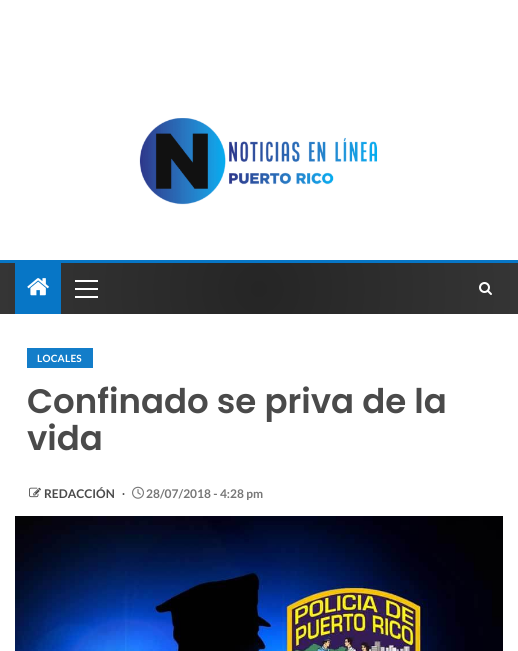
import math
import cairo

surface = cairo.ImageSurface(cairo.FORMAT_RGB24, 518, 651)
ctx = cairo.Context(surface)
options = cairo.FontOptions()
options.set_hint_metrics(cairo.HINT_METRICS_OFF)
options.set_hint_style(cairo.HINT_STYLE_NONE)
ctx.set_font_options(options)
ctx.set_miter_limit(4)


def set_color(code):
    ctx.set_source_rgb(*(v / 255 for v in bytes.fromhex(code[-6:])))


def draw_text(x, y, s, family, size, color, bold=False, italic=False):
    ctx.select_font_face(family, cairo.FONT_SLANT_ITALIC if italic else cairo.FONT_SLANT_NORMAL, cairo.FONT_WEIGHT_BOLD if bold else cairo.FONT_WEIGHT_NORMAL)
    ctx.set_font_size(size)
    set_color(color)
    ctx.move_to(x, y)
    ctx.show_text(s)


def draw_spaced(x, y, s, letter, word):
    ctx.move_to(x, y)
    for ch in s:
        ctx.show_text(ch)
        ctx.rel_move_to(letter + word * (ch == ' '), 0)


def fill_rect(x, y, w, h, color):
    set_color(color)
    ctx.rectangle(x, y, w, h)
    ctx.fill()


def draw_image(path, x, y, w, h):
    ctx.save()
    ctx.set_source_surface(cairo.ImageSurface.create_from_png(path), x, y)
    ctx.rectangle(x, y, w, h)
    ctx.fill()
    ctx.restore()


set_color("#ffffff")
ctx.paint()
draw_image("assets/img1.png", 139, 118, 239, 87)
gradient = cairo.RadialGradient(259, 289, 0, 259, 289, 260)
gradient.add_color_stop_rgba(0, 0.145, 0.145, 0.145, 1)
gradient.add_color_stop_rgba(1, 0.208, 0.208, 0.208, 1)
ctx.set_source(gradient)
ctx.rectangle(0, 263, 518, 51)
ctx.fill()
fill_rect(0, 260, 518, 3, "#0776c6")
fill_rect(15, 263, 46, 51, "#0776c6")
draw_image("assets/img2.png", 27, 278, 22, 18)
fill_rect(75, 288, 23, 2, "#ffffff")
fill_rect(75, 280, 23, 2, "#ffffff")
fill_rect(75, 296, 23, 2, "#ffffff")
draw_image("assets/img3.png", 479, 282, 13, 13)
fill_rect(27, 348, 66, 20, "#137dc9")
ctx.select_font_face("Lato", cairo.FONT_SLANT_NORMAL, cairo.FONT_WEIGHT_BOLD)
ctx.set_font_size(10)
set_color("#ffffff")
draw_spaced(37, 362, "LOCALES", 0.25, 0)
draw_text(27, 413, "Confinado se priva de la", "Poppins SemiBold", 34, "#4a4a4a")
draw_text(27, 450, "vida", "Poppins SemiBold", 34, "#4a4a4a")
draw_image("assets/img4.png", 29, 487, 12, 11)
draw_text(44, 498, "REDACCIÓN", "Lato", 12, "#4a4a4a", bold=True)
draw_text(122, 498, "∙", "Liberation Serif", 12, "#4a4a4a", bold=True)
draw_image("assets/img5.png", 132, 486, 12, 13)
draw_text(146, 498, "28/07/2018 - 4:28 pm", "Lato", 12, "#777777", bold=True)
draw_image("assets/img6.png", 15, 516, 488, 135)
surface.write_to_png("output.png")
